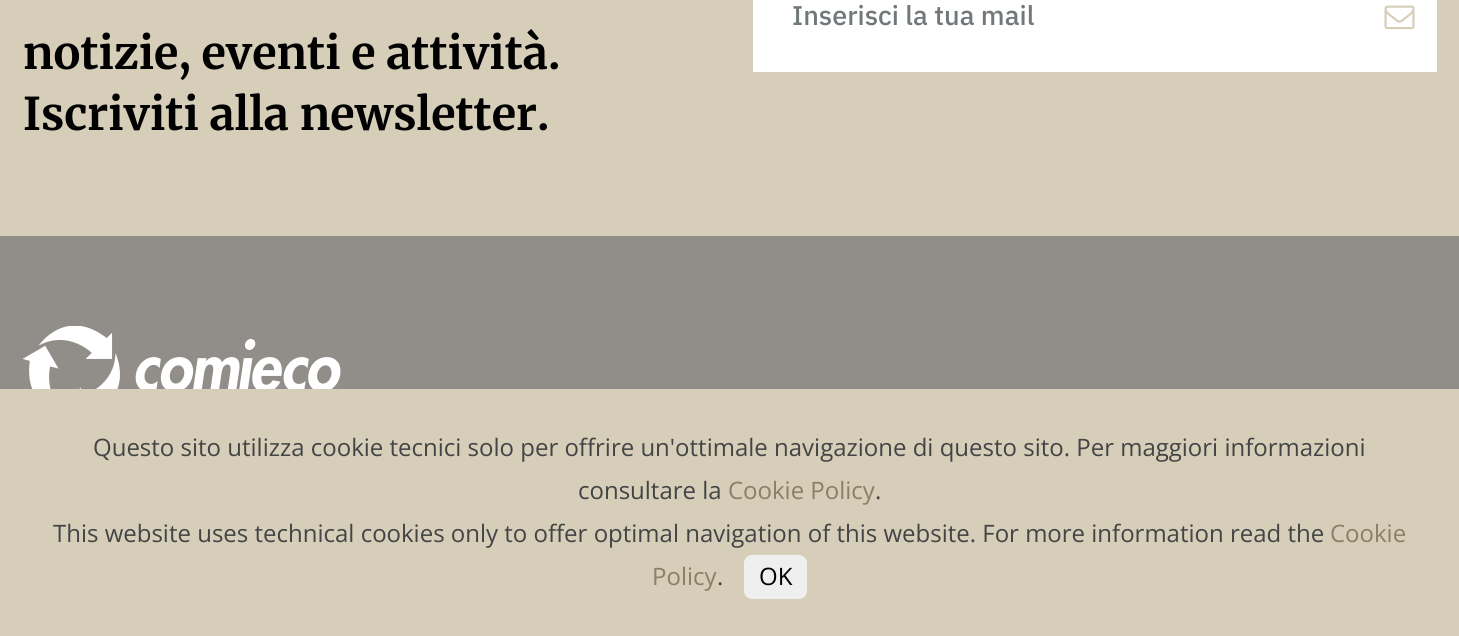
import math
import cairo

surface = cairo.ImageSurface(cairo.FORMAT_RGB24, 1459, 636)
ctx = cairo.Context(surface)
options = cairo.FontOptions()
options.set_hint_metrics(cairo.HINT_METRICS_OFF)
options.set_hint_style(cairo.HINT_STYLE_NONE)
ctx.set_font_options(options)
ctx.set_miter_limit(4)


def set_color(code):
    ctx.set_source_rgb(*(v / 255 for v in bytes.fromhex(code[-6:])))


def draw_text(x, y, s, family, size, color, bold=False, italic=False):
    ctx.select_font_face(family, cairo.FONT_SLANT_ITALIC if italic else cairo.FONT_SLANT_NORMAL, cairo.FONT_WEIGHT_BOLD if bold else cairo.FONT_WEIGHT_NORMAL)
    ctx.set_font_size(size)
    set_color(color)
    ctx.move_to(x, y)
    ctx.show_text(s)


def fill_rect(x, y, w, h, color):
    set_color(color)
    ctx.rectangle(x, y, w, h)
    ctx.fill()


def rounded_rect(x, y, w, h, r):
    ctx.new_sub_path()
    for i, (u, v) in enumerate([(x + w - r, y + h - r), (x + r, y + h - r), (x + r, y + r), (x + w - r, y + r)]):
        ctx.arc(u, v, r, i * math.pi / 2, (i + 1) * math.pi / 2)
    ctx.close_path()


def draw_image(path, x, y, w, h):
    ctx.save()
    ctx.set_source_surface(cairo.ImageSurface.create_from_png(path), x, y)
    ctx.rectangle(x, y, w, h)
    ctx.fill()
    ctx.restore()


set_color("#d6ceb8")
ctx.paint()
fill_rect(753, 0, 684, 72, "#ffffff")
draw_text(792, 25, "Inserisci la tua mail", "IBM Plex Sans Medium", 27, "#72787a")
draw_image("assets/img1.png", 1384, 5, 31, 25)
draw_text(23, 69, "notizie, eventi e attività.", "Merriweather", 45, "#010101", bold=True)
draw_text(23, 130, "Iscriviti alla newsletter.", "Merriweather", 45, "#010101", bold=True)
fill_rect(0, 236, 1459, 153, "#918e89")
draw_image("assets/img2.png", 23, 326, 318, 63)
draw_text(93, 456, "Questo sito utilizza cookie tecnici solo per offrire un'ottimale navigazione di questo sito. Per maggiori informazioni", "Open Sans", 24, "#434445")
draw_text(578, 499, "consultare la", "Open Sans", 24, "#434445")
draw_text(728, 499, "Cookie Policy", "Open Sans", 24, "#8a8069")
draw_text(875, 499, ".", "Open Sans", 24, "#434445")
draw_text(53, 542, "This website uses technical cookies only to offer optimal navigation of this website. For more information read the", "Open Sans", 24, "#434445")
draw_text(1330, 542, "Cookie", "Open Sans", 24, "#8a8069")
draw_text(652, 585, "Policy", "Open Sans", 24, "#8a8069")
draw_text(717, 585, ".", "Open Sans", 24, "#434445")
set_color("#efefef")
rounded_rect(744, 555, 63, 44, 8)
ctx.fill()
draw_text(759, 585, "OK", "Open Sans", 24, "#010101")
surface.write_to_png("output.png")
